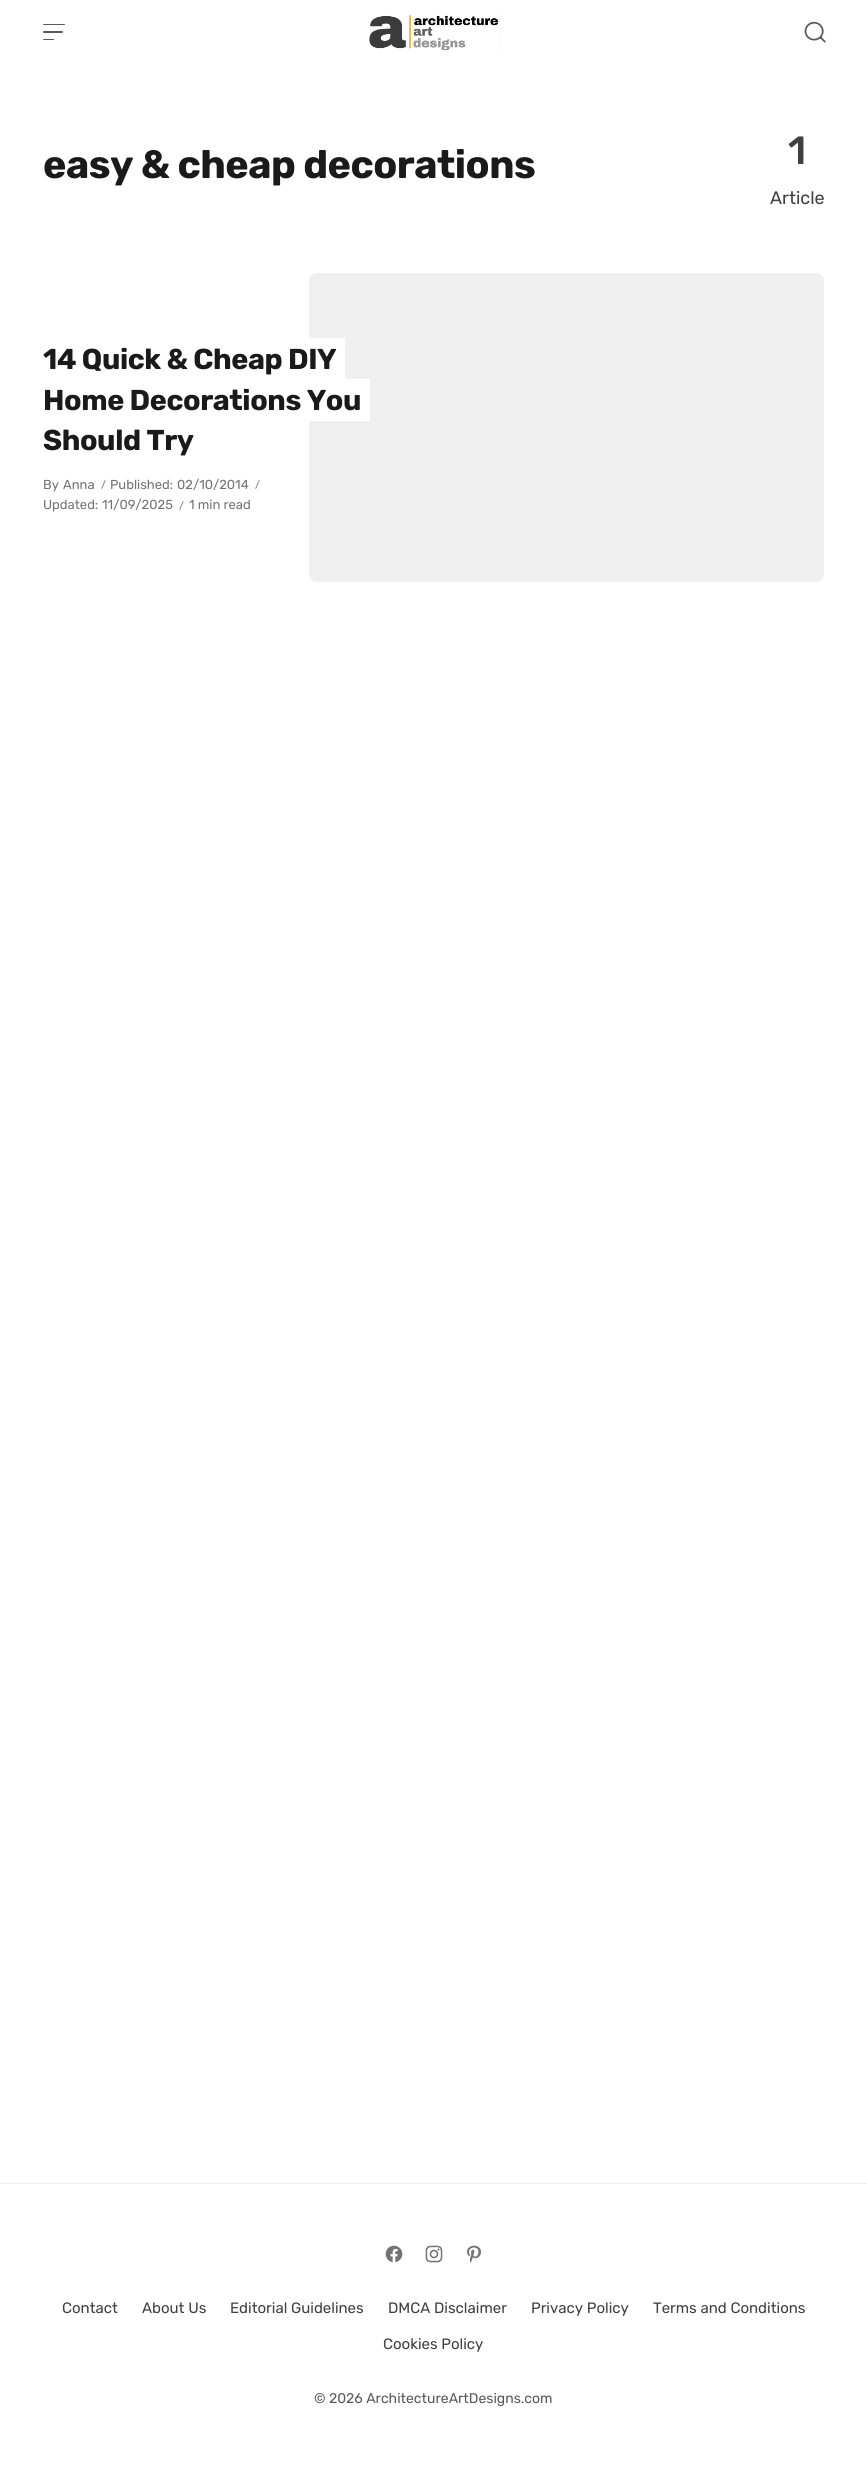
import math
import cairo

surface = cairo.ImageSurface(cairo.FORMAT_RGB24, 867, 2471)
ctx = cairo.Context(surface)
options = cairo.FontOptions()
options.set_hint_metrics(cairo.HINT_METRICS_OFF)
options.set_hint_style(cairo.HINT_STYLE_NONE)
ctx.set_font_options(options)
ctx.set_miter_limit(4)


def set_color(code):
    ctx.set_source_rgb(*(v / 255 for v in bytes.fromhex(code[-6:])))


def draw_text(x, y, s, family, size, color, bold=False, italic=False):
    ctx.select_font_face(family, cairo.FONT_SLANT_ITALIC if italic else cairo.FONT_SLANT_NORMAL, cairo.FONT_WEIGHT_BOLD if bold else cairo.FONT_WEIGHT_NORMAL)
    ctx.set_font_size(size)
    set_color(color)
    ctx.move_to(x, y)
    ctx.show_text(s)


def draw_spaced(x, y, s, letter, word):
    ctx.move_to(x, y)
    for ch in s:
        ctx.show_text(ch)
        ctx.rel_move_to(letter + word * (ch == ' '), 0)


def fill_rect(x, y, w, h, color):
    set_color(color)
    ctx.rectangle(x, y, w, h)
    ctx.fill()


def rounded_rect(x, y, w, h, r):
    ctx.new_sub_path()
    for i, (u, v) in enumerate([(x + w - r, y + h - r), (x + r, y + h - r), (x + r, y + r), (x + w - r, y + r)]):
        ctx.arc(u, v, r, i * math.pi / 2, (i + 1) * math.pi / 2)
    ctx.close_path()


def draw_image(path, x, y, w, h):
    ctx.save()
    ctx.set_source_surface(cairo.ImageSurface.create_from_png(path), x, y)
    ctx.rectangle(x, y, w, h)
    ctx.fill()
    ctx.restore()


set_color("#ffffff")
ctx.paint()
set_color("#595959")
rounded_rect(43, 24, 22, 1, 0.5)
ctx.fill()
rounded_rect(43, 31, 20, 2, 1)
ctx.fill()
rounded_rect(43, 39, 11, 1, 0.5)
ctx.fill()
draw_image("assets/img1.png", 369, 12, 132, 40)
draw_image("assets/img2.png", 804, 21, 22, 22)
ctx.select_font_face("Rubik", cairo.FONT_SLANT_NORMAL, cairo.FONT_WEIGHT_BOLD)
ctx.set_font_size(39.4)
set_color("#1a1a1a")
draw_spaced(43, 178, "easy & cheap decorations", -0.5, 0)
draw_text(788, 164, "1", "Rubik Medium", 39.4, "#404040")
draw_text(770, 204, "Article", "Rubik", 18, "#404040")
set_color("#f0f0f0")
rounded_rect(309, 273, 515, 309, 8)
ctx.fill()
set_color("#ffffff")
ctx.new_path()
ctx.move_to(51, 338)
ctx.line_to(51, 342)
ctx.line_to(337, 342)
ctx.line_to(337, 372)
ctx.line_to(345, 372)
ctx.line_to(345, 338)
ctx.close_path()
ctx.fill()
ctx.new_path()
ctx.move_to(51, 376)
ctx.line_to(51, 380)
ctx.line_to(345, 380)
ctx.line_to(345, 346)
ctx.line_to(337, 346)
ctx.line_to(337, 376)
ctx.close_path()
ctx.fill()
fill_rect(309, 342, 28, 34, "#ffffff")
ctx.select_font_face("Rubik", cairo.FONT_SLANT_NORMAL, cairo.FONT_WEIGHT_BOLD)
ctx.set_font_size(28.75)
set_color("#1a1a1a")
draw_spaced(43, 369, "14 Quick & Cheap DIY", -0.4, 0)
set_color("#ffffff")
ctx.new_path()
ctx.move_to(51, 379)
ctx.line_to(51, 383)
ctx.line_to(362, 383)
ctx.line_to(362, 413)
ctx.line_to(370, 413)
ctx.line_to(370, 379)
ctx.close_path()
ctx.fill()
ctx.new_path()
ctx.move_to(51, 417)
ctx.line_to(51, 421)
ctx.line_to(370, 421)
ctx.line_to(370, 387)
ctx.line_to(362, 387)
ctx.line_to(362, 417)
ctx.close_path()
ctx.fill()
fill_rect(309, 383, 53, 34, "#ffffff")
set_color("#1a1a1a")
draw_spaced(43, 410, "Home Decorations You", -0.4, 0)
draw_spaced(43, 450, "Should Try", -0.4, 0)
draw_text(43, 489, "By", "Rubik", 13, "#737373")
draw_text(63, 489, "Anna", "Rubik", 13, "#737373")
draw_text(101, 488, "/", "Rubik", 10, "#737373")
draw_text(110, 489, "Published:", "Rubik", 13, "#737373")
draw_text(177, 489, "02/10/2014", "Rubik", 13, "#737373")
draw_text(255, 488, "/", "Rubik", 10, "#737373")
draw_text(43, 509, "Updated:", "Rubik", 13, "#737373")
draw_text(102, 509, "11/09/2025", "Rubik", 13, "#737373")
draw_text(179, 509, "/", "Rubik", 10, "#737373")
draw_text(189, 509, "1 min read", "Rubik", 13, "#737373")
fill_rect(0, 2183, 867, 1, "#f0f0f0")
draw_image("assets/img3.png", 385, 2245, 18, 18)
draw_image("assets/img4.png", 425, 2245, 18, 18)
draw_image("assets/img5.png", 467, 2245, 14, 18)
draw_text(62, 2313, "Contact", "Rubik", 15, "#404040")
draw_text(142, 2313, "About Us", "Rubik", 15, "#404040")
draw_text(230, 2313, "Editorial Guidelines", "Rubik", 15, "#404040")
draw_text(388, 2313, "DMCA Disclaimer", "Rubik", 15, "#404040")
draw_text(531, 2313, "Privacy Policy", "Rubik", 15, "#404040")
draw_text(653, 2313, "Terms and Conditions", "Rubik", 15, "#404040")
draw_text(383, 2349, "Cookies Policy", "Rubik", 15, "#404040")
draw_text(314, 2403, "© 2026 ArchitectureArtDesigns.com", "Rubik", 14, "#595959")
surface.write_to_png("output.png")
